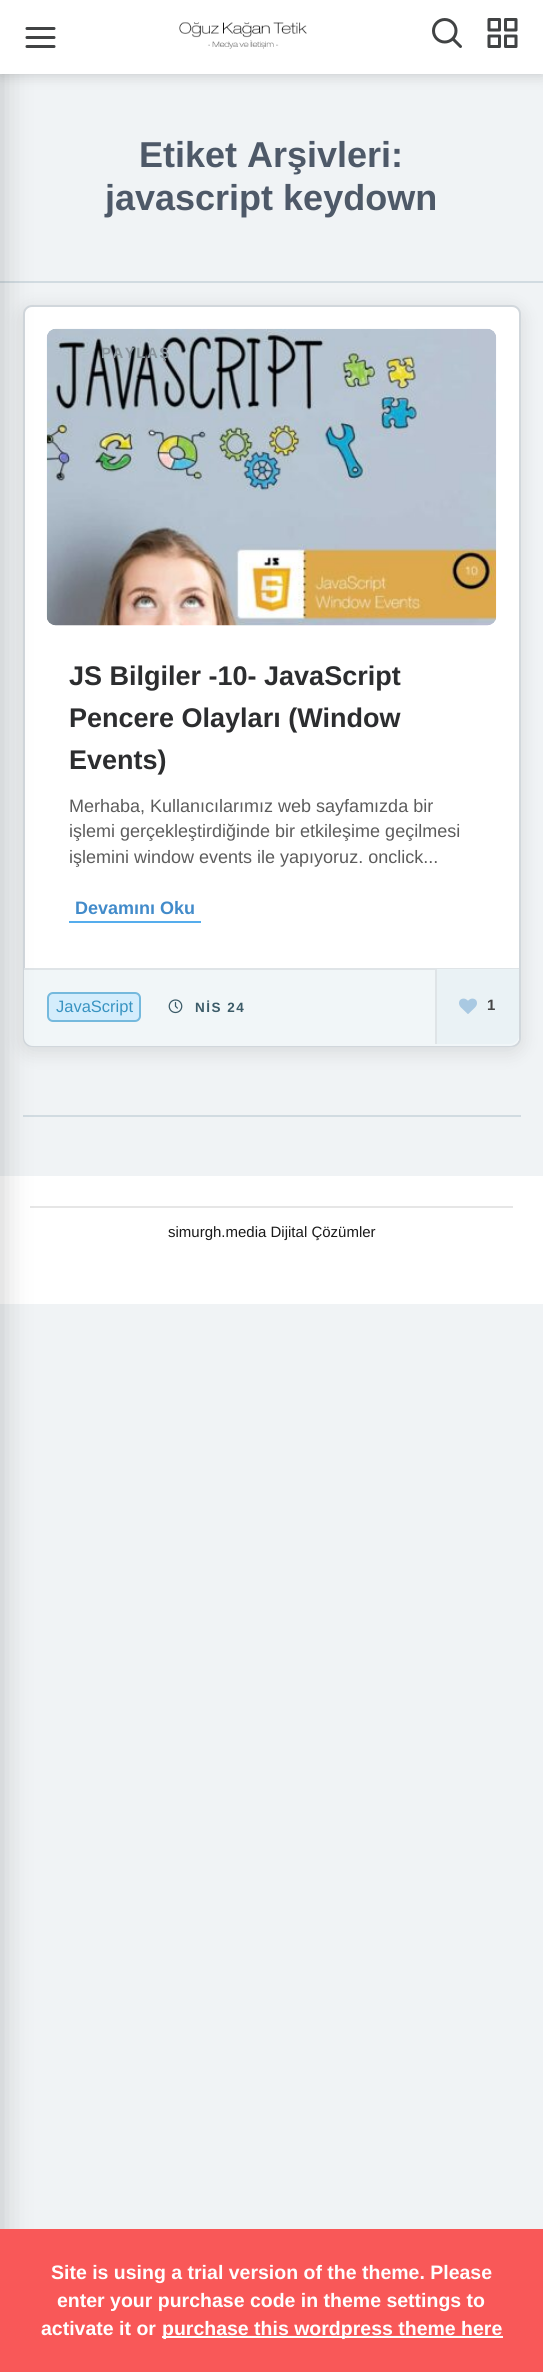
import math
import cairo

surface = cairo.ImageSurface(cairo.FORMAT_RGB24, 543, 2372)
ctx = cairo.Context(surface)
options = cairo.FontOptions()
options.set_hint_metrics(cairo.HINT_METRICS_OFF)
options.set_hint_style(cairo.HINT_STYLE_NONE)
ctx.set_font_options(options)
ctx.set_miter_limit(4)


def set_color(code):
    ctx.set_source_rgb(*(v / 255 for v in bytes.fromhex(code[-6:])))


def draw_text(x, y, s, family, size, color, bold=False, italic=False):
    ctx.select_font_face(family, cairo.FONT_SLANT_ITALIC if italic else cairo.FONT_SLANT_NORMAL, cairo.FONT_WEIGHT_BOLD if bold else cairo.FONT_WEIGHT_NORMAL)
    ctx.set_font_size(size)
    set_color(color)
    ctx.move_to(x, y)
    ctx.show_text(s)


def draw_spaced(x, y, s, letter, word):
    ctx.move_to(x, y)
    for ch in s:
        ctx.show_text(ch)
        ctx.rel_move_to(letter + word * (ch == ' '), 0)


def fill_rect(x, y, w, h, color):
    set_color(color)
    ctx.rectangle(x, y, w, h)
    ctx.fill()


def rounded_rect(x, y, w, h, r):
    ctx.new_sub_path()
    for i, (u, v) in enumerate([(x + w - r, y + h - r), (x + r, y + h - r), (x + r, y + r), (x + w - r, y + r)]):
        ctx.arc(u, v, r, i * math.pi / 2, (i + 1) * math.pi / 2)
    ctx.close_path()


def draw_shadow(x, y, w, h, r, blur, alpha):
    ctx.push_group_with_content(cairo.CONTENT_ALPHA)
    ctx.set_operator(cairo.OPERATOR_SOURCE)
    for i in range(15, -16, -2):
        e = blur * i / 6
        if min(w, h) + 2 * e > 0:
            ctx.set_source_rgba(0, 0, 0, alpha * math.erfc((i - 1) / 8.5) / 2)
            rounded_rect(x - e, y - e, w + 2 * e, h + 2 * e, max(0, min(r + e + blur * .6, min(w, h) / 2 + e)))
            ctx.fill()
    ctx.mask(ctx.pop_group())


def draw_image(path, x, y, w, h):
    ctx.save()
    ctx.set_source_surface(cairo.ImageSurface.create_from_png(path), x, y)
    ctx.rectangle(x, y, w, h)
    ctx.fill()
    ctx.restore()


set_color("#f0f3f5")
ctx.paint()
fill_rect(0, 281, 543, 2, "#d1dbe1")
set_color("#000000")
draw_shadow(21, 308, 501, 745, 11, 9, 0.1)
set_color("#ffffff")
rounded_rect(24, 306, 496, 740, 8)
ctx.fill_preserve()
set_color("#d1d7dc")
ctx.stroke()
draw_image("assets/img5.png", 46, 328, 451, 298)
set_color("#f1f6f8")
ctx.new_path()
ctx.move_to(24, 968)
ctx.line_to(519, 968)
ctx.line_to(519, 1037)
ctx.curve_to(519, 1042, 515, 1046, 510, 1046)
ctx.line_to(33, 1046)
ctx.curve_to(28, 1046, 24, 1042, 24, 1037)
ctx.close_path()
ctx.fill()
fill_rect(24, 968, 495, 2, "#dfe4e7")
set_color("#d4edfc")
rounded_rect(48, 993, 92, 28, 5)
ctx.fill_preserve()
set_color("#75b9dd")
ctx.stroke()
fill_rect(23, 1115, 498, 2, "#d1dbe1")
fill_rect(0, 1176, 543, 128, "#ffffff")
fill_rect(30, 1206, 483, 2, "#e6e6e6")
set_color("#000000")
draw_shadow(-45, -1, 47, 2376, 0, 15, 0.2)
draw_shadow(0, 0, 543, 74, 0, 7.5, 0.2)
fill_rect(0, 0, 543, 74, "#ffffff")
draw_image("assets/img1.png", 25, 27, 31, 21)
draw_image("assets/img2.png", 179, 22, 128, 27)
draw_image("assets/img3.png", 432, 18, 30, 30)
draw_image("assets/img4.png", 487, 18, 31, 30)
draw_text(139, 167, "Etiket Arşivleri:", "Liberation Sans", 36, "#4e5968", bold=True)
draw_text(105, 210, "javascript keydown", "Liberation Sans", 36, "#4e5968", bold=True)
ctx.set_font_size(15)
set_color("#89949c")
draw_spaced(101, 358, "PAYLAŞ", 1.5, 0)
draw_text(69, 685, "JS Bilgiler -10- JavaScript", "Liberation Sans", 27, "#2c2d2f", bold=True)
draw_text(69, 727, "Pencere Olayları (Window", "Liberation Sans", 27, "#2c2d2f", bold=True)
draw_text(69, 769, "Events)", "Liberation Sans", 27, "#2c2d2f", bold=True)
draw_text(69, 812, "Merhaba, Kullanıcılarımız web sayfamızda bir", "Liberation Sans", 18, "#5c5c5c")
draw_text(69, 837, "işlemi gerçekleştirdiğinde bir etkileşime geçilmesi", "Liberation Sans", 18, "#5c5c5c")
draw_text(69, 863, "işlemini window events ile yapıyoruz. onclick...", "Liberation Sans", 18, "#5c5c5c")
fill_rect(69, 921, 132, 2, "#55aded")
draw_text(75, 914, "Devamını Oku", "Liberation Sans", 18, "#428bca", bold=True)
draw_text(56, 1012, "JavaScript", "Liberation Sans", 16.5, "#3893c1")
draw_image("assets/img6.png", 168, 999, 15, 15)
ctx.select_font_face("Liberation Sans", cairo.FONT_SLANT_NORMAL, cairo.FONT_WEIGHT_BOLD)
ctx.set_font_size(13.5)
set_color("#3c5b68")
draw_spaced(195, 1012, "NİS 24", 1.5, 0)
set_color("#eaf2f5")
ctx.new_path()
ctx.move_to(435, 969)
ctx.line_to(519, 969)
ctx.line_to(519, 1035)
ctx.curve_to(519, 1040, 515, 1044, 510, 1044)
ctx.line_to(435, 1044)
ctx.close_path()
ctx.fill()
fill_rect(435, 969, 2, 75, "#dfe4e7")
draw_image("assets/img7.png", 459, 998, 18, 16)
ctx.set_font_size(15)
set_color("#464646")
draw_spaced(487, 1010, "1", 1.5, 0)
draw_text(168, 1237, "simurgh.media Dijital Çözümler", "Liberation Sans", 15, "#1a1a1a")
fill_rect(0, 2229, 543, 143, "#f95858")
draw_text(51, 2279, "Site is using a trial version of the theme. Please", "Liberation Sans", 19.5, "#ffffff", bold=True)
draw_text(57, 2307, "enter your purchase code in theme settings to", "Liberation Sans", 19.5, "#ffffff", bold=True)
draw_text(41, 2335, "activate it or", "Liberation Sans", 19.5, "#ffffff", bold=True)
fill_rect(162, 2336, 341, 2, "#ffffff")
draw_text(162, 2335, "purchase this wordpress theme here", "Liberation Sans", 19.5, "#ffffff", bold=True)
surface.write_to_png("output.png")
